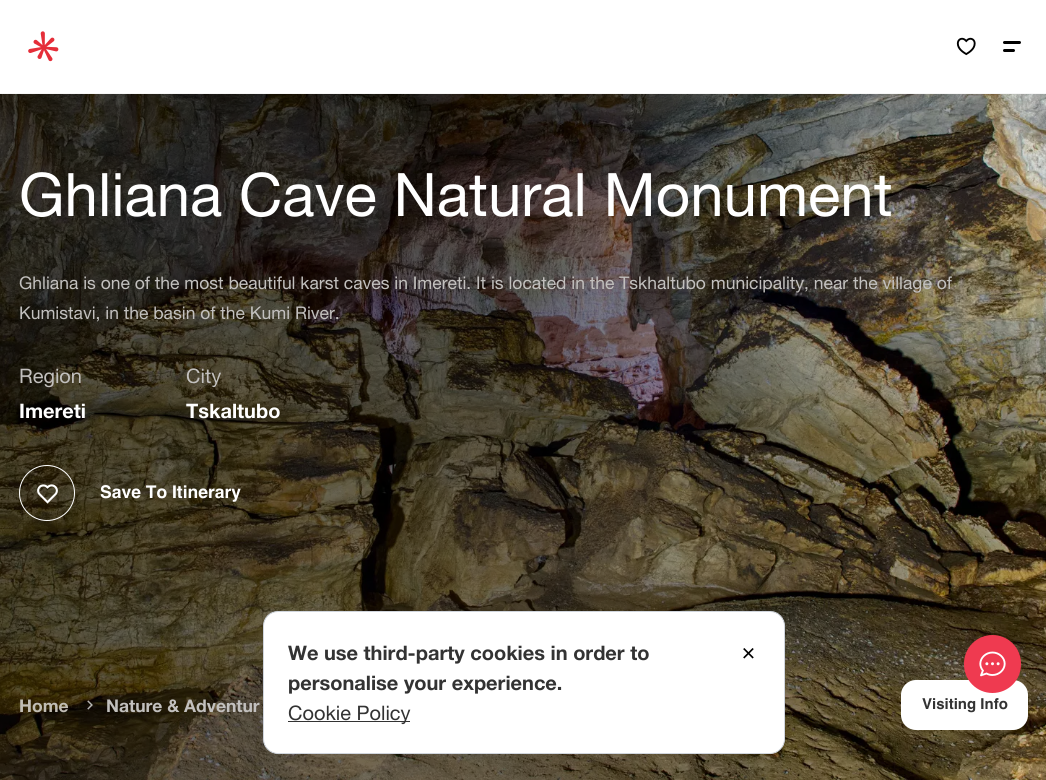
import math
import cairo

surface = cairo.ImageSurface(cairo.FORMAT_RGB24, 1046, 780)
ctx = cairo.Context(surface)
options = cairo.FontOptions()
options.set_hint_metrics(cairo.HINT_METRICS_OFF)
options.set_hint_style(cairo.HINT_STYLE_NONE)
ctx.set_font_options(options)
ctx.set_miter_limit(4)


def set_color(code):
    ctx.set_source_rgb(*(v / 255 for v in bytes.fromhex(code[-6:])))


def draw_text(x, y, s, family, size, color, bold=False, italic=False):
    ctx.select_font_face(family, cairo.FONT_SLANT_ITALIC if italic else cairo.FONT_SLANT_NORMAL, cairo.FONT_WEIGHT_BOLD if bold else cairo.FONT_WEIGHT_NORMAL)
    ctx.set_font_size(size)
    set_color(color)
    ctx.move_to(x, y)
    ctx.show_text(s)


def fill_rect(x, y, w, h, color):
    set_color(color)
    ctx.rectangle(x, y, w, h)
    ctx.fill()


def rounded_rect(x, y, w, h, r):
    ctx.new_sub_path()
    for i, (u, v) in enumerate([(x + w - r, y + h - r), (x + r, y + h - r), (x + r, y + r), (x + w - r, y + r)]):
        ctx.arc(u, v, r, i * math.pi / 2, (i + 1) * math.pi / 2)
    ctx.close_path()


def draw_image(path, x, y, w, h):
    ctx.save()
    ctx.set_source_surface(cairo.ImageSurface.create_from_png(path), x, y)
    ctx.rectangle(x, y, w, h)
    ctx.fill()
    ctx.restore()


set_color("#ffffff")
ctx.paint()
fill_rect(0, 93, 1046, 1, "#f6f6f6")
draw_image("assets/img1.png", 28, 31, 31, 31)
draw_image("assets/img2.png", 956, 37, 20, 19)
set_color("#000000")
rounded_rect(1003, 41, 18, 3, 1.5)
ctx.fill()
rounded_rect(1003, 49, 12, 3, 1.5)
ctx.fill()
draw_image("assets/img3.png", 0, 94, 1046, 686)
draw_text(19, 216, "Ghliana Cave Natural Monument", "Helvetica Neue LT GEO", 60, "#ffffff")
draw_text(19, 289, "Ghliana is one of the most beautiful karst caves in Imereti. It is located in the Tskhaltubo municipality, near the village of", "Helvetica Neue LT GEO", 17.5, "#c2c0be")
draw_text(19, 319, "Kumistavi, in the basin of the Kumi River.", "Helvetica Neue LT GEO", 17.5, "#c2c0be")
draw_text(19, 383, "Region", "Helvetica Neue LT GEO", 20, "#c2c0be")
draw_text(19, 418, "Imereti", "Helvetica Neue LT GEO", 20, "#ffffff", bold=True)
draw_text(186, 383, "City", "Helvetica Neue LT GEO", 20, "#c2c0be")
draw_text(186, 418, "Tskaltubo", "Helvetica Neue LT GEO", 20, "#ffffff", bold=True)
ctx.new_path()
ctx.arc(47, 493, 27.5, 0, 2 * math.pi)
ctx.set_line_width(1)
ctx.stroke()
draw_image("assets/img4.png", 37, 484, 21, 20)
draw_text(100, 498, "Save To Itinerary", "Helvetica", 17.5, "#ffffff", bold=True)
draw_text(19, 712, "Home", "Helvetica Neue LT GEO", 17.5, "#c1bdb4", bold=True)
draw_image("assets/img5.png", 87, 700, 6, 10)
draw_text(106, 712, "Nature & Adventur", "Helvetica Neue LT GEO", 17.5, "#c2c0be", bold=True)
set_color("#ffffff")
rounded_rect(901, 680, 127, 50, 15)
ctx.fill()
draw_text(922, 709, "Visiting Info", "Helvetica", 15, "#333333", bold=True)
set_color("#ffffff")
rounded_rect(263.5, 611.5, 521, 142, 14.5)
ctx.fill_preserve()
set_color("#d0d5dd")
ctx.stroke()
draw_text(288, 660, "We use third-party cookies in order to", "Helvetica Neue LT GEO", 20, "#333333", bold=True)
draw_text(288, 690, "personalise your experience.", "Helvetica Neue LT GEO", 20, "#333333", bold=True)
fill_rect(288, 721, 122, 1, "#333333")
draw_text(288, 720, "Cookie Policy", "Helvetica Neue LT GEO", 20, "#333333")
draw_image("assets/img6.png", 743, 648, 11, 11)
set_color("#ef3a50")
rounded_rect(964, 635, 57, 58, 28.5)
ctx.fill()
draw_image("assets/img7.png", 979, 651, 27, 26)
surface.write_to_png("output.png")
